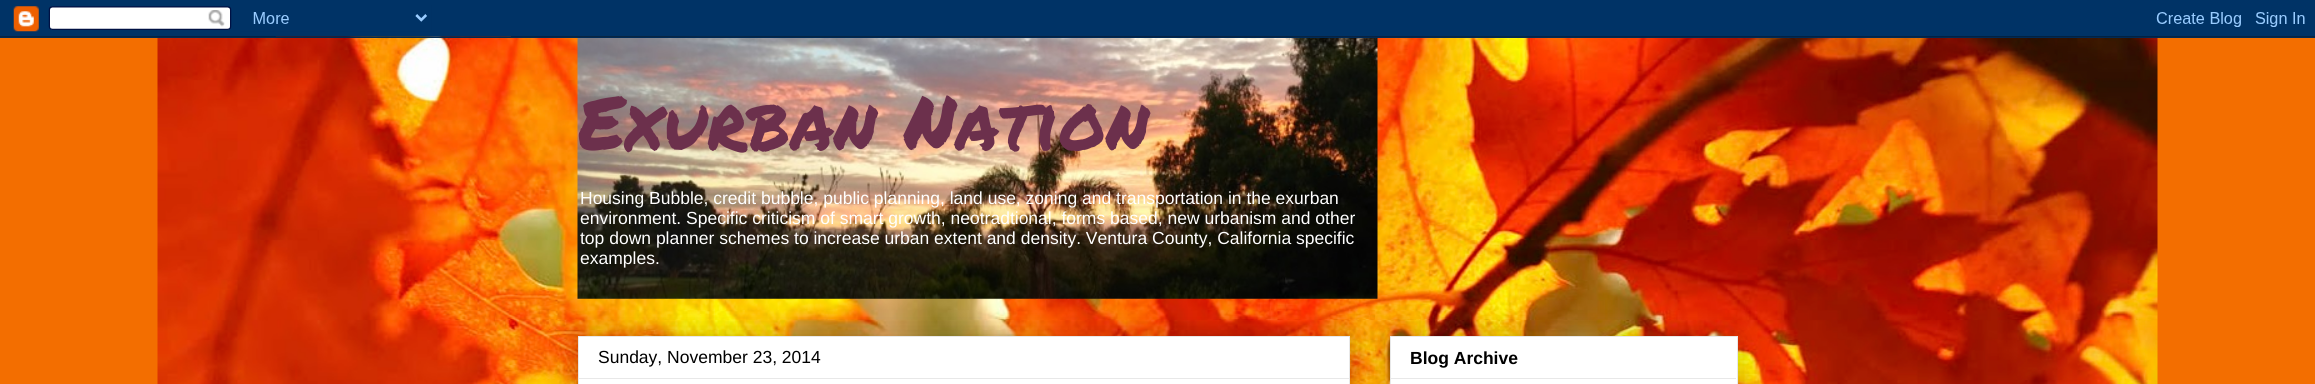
import math
import cairo

surface = cairo.ImageSurface(cairo.FORMAT_RGB24, 2315, 384)
ctx = cairo.Context(surface)
options = cairo.FontOptions()
options.set_hint_metrics(cairo.HINT_METRICS_OFF)
options.set_hint_style(cairo.HINT_STYLE_NONE)
ctx.set_font_options(options)
ctx.set_miter_limit(4)


def set_color(code):
    ctx.set_source_rgb(*(v / 255 for v in bytes.fromhex(code[-6:])))


def draw_text(x, y, s, family, size, color, bold=False, italic=False):
    ctx.select_font_face(family, cairo.FONT_SLANT_ITALIC if italic else cairo.FONT_SLANT_NORMAL, cairo.FONT_WEIGHT_BOLD if bold else cairo.FONT_WEIGHT_NORMAL)
    ctx.set_font_size(size)
    set_color(color)
    ctx.move_to(x, y)
    ctx.show_text(s)


def fill_rect(x, y, w, h, color):
    set_color(color)
    ctx.rectangle(x, y, w, h)
    ctx.fill()


def rounded_rect(x, y, w, h, r):
    ctx.new_sub_path()
    for i, (u, v) in enumerate([(x + w - r, y + h - r), (x + r, y + h - r), (x + r, y + r), (x + w - r, y + r)]):
        ctx.arc(u, v, r, i * math.pi / 2, (i + 1) * math.pi / 2)
    ctx.close_path()


def draw_shadow(x, y, w, h, r, blur, alpha):
    ctx.push_group_with_content(cairo.CONTENT_ALPHA)
    ctx.set_operator(cairo.OPERATOR_SOURCE)
    for i in range(15, -16, -2):
        e = blur * i / 6
        if min(w, h) + 2 * e > 0:
            ctx.set_source_rgba(0, 0, 0, alpha * math.erfc((i - 1) / 8.5) / 2)
            rounded_rect(x - e, y - e, w + 2 * e, h + 2 * e, max(0, min(r + e + blur * .6, min(w, h) / 2 + e)))
            ctx.fill()
    ctx.mask(ctx.pop_group())


def draw_image(path, x, y, w, h):
    ctx.save()
    ctx.set_source_surface(cairo.ImageSurface.create_from_png(path), x, y)
    ctx.rectangle(x, y, w, h)
    ctx.fill()
    ctx.restore()


set_color("#f36e00")
ctx.paint()
draw_image("assets/img1.png", 157, 36, 2001, 348)
draw_image("assets/img2.png", 0, 0, 2315, 38)
draw_image("assets/img3.png", 577, 38, 801, 261)
draw_text(578, 150, "Exurban Nation", "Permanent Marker", 75, "#6c304c")
draw_text(580, 204, "Housing Bubble, credit bubble, public planning, land use, zoning and transportation in the exurban", "Arimo", 17.5, "#ffffff")
draw_text(580, 224, "environment. Specific criticism of smart growth, neotradtional, forms based, new urbanism and other", "Arimo", 17.5, "#ffffff")
draw_text(580, 244, "top down planner schemes to increase urban extent and density. Ventura County, California specific", "Arimo", 17.5, "#ffffff")
draw_text(580, 264, "examples.", "Arimo", 17.5, "#ffffff")
set_color("#000000")
draw_shadow(578, 336, 772, 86, 0, 12.5, 0.2)
set_color("#ffffff")
ctx.rectangle(578.5, 336.5, 771, 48)
ctx.fill_preserve()
set_color("#e8e8e8")
ctx.set_line_width(1)
ctx.stroke()
draw_text(598, 363, "Sunday, November 23, 2014", "Liberation Sans", 17.5, "#000000")
fill_rect(579, 378, 770, 1, "#e8e8e8")
set_color("#000000")
draw_shadow(1390, 336, 348, 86, 0, 12.5, 0.2)
set_color("#ffffff")
ctx.rectangle(1390.5, 336.5, 347, 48)
ctx.fill_preserve()
set_color("#e8e8e8")
ctx.stroke()
draw_text(1410, 364, "Blog Archive", "Liberation Sans", 17.5, "#000000", bold=True)
fill_rect(1391, 378, 345, 1, "#e8e8e8")
surface.write_to_png("output.png")
